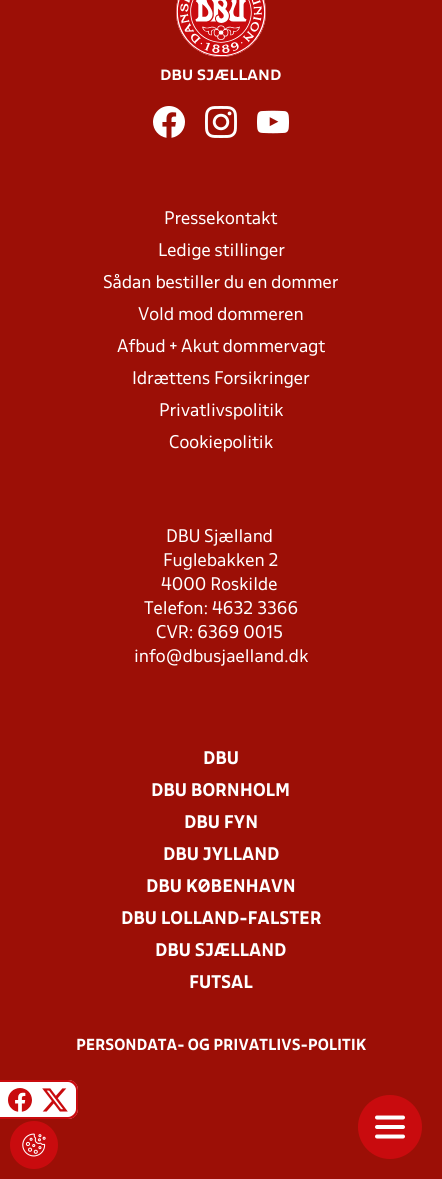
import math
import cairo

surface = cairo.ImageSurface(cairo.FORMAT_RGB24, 442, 1179)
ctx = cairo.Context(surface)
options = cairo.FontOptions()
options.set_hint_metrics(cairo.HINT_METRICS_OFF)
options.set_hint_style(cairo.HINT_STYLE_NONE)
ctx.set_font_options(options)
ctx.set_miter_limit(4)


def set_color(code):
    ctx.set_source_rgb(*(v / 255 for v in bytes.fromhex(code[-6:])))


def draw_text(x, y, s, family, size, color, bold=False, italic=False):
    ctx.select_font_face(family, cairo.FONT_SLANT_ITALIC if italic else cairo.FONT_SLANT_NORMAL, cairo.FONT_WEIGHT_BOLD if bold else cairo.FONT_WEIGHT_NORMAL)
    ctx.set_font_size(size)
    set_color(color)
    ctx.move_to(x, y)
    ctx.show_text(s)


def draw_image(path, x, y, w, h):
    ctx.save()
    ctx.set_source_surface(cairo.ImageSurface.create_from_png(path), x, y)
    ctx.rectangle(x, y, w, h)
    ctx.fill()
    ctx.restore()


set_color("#9c0f06")
ctx.paint()
draw_image("assets/img1.png", 176, 0, 90, 57)
draw_text(160, 80, "DBU SJÆLLAND", "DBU", 13, "#ffffff", bold=True)
draw_image("assets/img2.png", 153, 106, 32, 32)
draw_image("assets/img3.png", 205, 106, 32, 32)
draw_image("assets/img4.png", 257, 110, 32, 24)
draw_text(164, 224, "Pressekontakt", "DBU", 16, "#ffffff")
draw_text(158, 256, "Ledige stillinger", "DBU", 16, "#ffffff")
draw_text(103, 288, "Sådan bestiller du en dommer", "DBU", 16, "#ffffff")
draw_text(138, 320, "Vold mod dommeren", "DBU", 16, "#ffffff")
draw_text(117, 352, "Afbud + Akut dommervagt", "DBU", 16, "#ffffff")
draw_text(132, 384, "Idrættens Forsikringer", "DBU", 16, "#ffffff")
draw_text(159, 416, "Privatlivspolitik", "DBU", 16, "#ffffff")
draw_text(169, 448, "Cookiepolitik", "DBU", 16, "#ffffff")
draw_text(166, 542, "DBU Sjælland", "DBU", 16, "#ffffff")
draw_text(163, 566, "Fuglebakken 2", "DBU", 16, "#ffffff")
draw_text(161, 590, "4000 Roskilde", "DBU", 16, "#ffffff")
draw_text(144, 614, "Telefon: 4632 3366", "DBU", 16, "#ffffff")
draw_text(156, 638, "CVR: 6369 0015", "DBU", 16, "#ffffff")
draw_text(134, 662, "info@dbusjaelland.dk", "DBU", 16, "#ffffff")
draw_text(203, 764, "DBU", "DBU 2", 16, "#ffffff", bold=True)
draw_text(151, 796, "DBU BORNHOLM", "DBU 2", 16, "#ffffff", bold=True)
draw_text(184, 828, "DBU FYN", "DBU 2", 16, "#ffffff", bold=True)
draw_text(163, 860, "DBU JYLLAND", "DBU 2", 16, "#ffffff", bold=True)
draw_text(146, 892, "DBU KØBENHAVN", "DBU 2", 16, "#ffffff", bold=True)
draw_text(121, 924, "DBU LOLLAND-FALSTER", "DBU 2", 16, "#ffffff", bold=True)
draw_text(155, 956, "DBU SJÆLLAND", "DBU 2", 16, "#ffffff", bold=True)
draw_text(189, 988, "FUTSAL", "DBU 2", 16, "#ffffff", bold=True)
draw_text(76, 1050, "PERSONDATA- OG PRIVATLIVS-POLITIK", "DBU 2", 14, "#ffffff", bold=True)
ctx.new_path()
ctx.move_to(0, 1080)
ctx.line_to(68, 1080)
ctx.curve_to(73.5, 1080, 78, 1084.5, 78, 1090)
ctx.line_to(78, 1109)
ctx.curve_to(78, 1114.5, 73.5, 1119, 68, 1119)
ctx.line_to(0, 1119)
ctx.close_path()
ctx.fill()
set_color("#c90b0e")
ctx.set_fill_rule(cairo.FILL_RULE_EVEN_ODD)
ctx.new_path()
ctx.move_to(0, 1080)
ctx.line_to(68, 1080)
ctx.curve_to(74, 1080, 78, 1084, 78, 1090)
ctx.line_to(78, 1109)
ctx.curve_to(78, 1115, 74, 1119, 68, 1119)
ctx.line_to(0, 1119)
ctx.close_path()
ctx.move_to(0, 1082)
ctx.line_to(68, 1082)
ctx.curve_to(72, 1082, 76, 1086, 76, 1090)
ctx.line_to(76, 1109)
ctx.curve_to(76, 1113, 72, 1117, 68, 1117)
ctx.line_to(0, 1117)
ctx.close_path()
ctx.fill()
draw_image("assets/img5.png", 8, 1088, 24, 24)
draw_image("assets/img6.png", 42, 1088, 26, 24)
ctx.arc(390, 1127, 32, 0, 2 * math.pi)
ctx.fill()
ctx.new_path()
ctx.move_to(403, 1136.5)
ctx.line_to(377, 1136.5)
ctx.move_to(403, 1127)
ctx.line_to(377, 1127)
ctx.move_to(403, 1117.5)
ctx.line_to(377, 1117.5)
set_color("#ffffff")
ctx.set_line_width(4)
ctx.set_line_cap(cairo.LINE_CAP_ROUND)
ctx.stroke()
set_color("#c90b0e")
ctx.arc(34, 1145, 24, 0, 2 * math.pi)
ctx.fill()
draw_image("assets/img7.png", 22, 1133, 24, 24)
surface.write_to_png("output.png")
